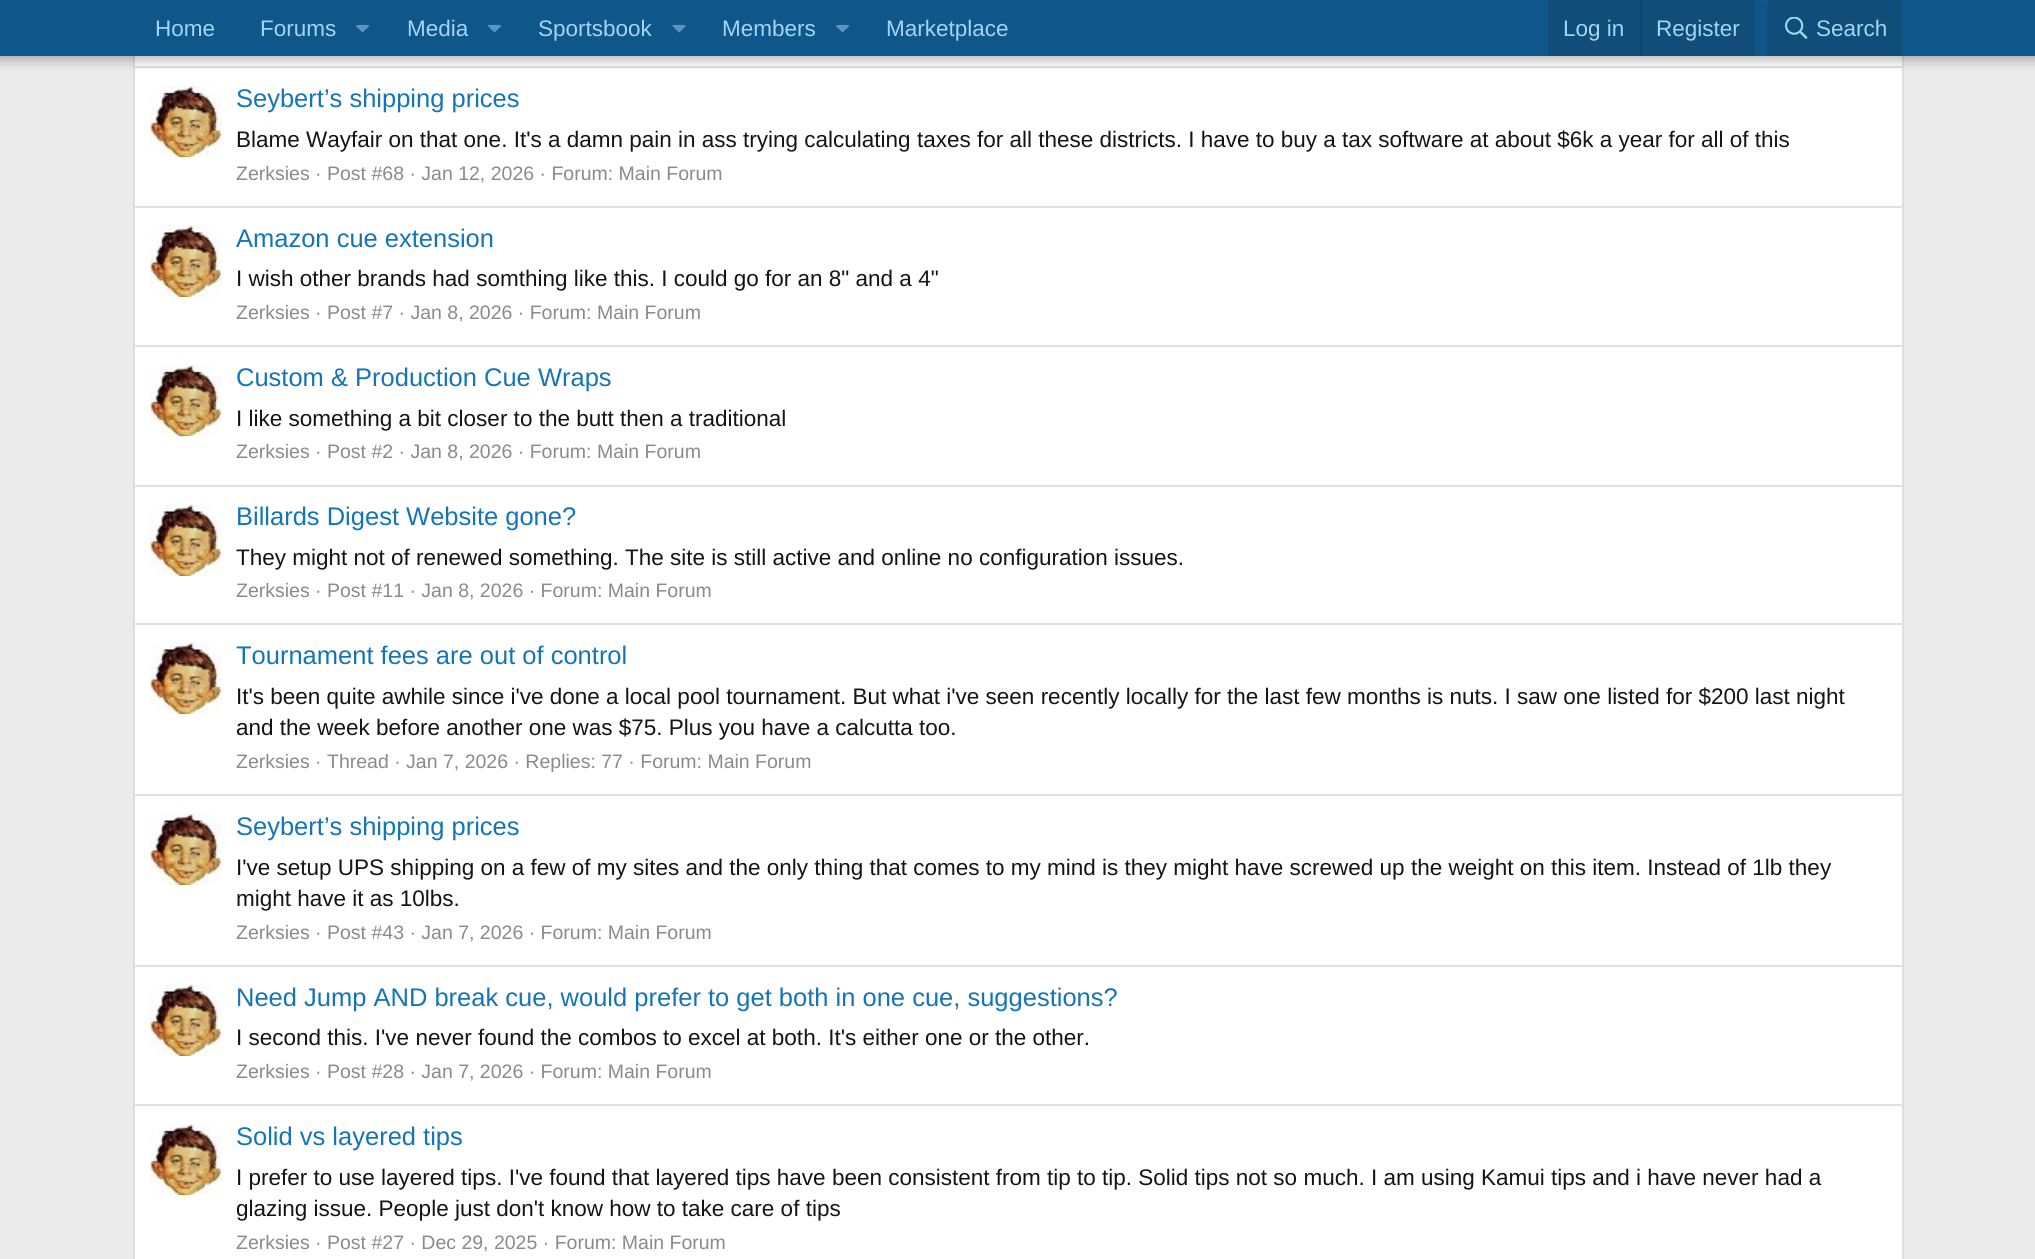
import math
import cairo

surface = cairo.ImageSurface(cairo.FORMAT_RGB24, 2035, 1259)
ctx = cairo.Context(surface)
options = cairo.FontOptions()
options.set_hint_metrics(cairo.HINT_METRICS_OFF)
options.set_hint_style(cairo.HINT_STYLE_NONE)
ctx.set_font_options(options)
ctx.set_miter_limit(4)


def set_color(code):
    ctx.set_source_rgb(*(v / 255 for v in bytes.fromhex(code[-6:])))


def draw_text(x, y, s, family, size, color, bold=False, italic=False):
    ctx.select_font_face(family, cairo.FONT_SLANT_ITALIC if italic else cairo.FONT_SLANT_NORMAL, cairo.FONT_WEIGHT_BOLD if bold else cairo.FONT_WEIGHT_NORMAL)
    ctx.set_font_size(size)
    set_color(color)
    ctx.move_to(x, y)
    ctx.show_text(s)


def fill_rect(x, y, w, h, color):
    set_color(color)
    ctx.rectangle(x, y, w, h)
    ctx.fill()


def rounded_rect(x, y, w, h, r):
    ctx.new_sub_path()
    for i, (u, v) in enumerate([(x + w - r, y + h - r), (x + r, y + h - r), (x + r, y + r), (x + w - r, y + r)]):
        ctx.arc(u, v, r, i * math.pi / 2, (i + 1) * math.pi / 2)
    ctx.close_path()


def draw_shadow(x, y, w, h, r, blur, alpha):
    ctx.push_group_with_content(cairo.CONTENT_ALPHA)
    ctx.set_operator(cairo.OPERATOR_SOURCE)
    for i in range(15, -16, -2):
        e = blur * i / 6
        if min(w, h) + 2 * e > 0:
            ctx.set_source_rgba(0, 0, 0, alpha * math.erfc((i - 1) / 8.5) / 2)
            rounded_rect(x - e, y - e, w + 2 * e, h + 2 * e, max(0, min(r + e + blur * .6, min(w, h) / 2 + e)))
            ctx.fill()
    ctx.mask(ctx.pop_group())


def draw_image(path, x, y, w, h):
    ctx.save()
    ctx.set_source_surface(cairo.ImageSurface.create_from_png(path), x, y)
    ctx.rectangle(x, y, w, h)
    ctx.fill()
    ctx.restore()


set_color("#ebebeb")
ctx.paint()
fill_rect(134, 56, 1770, 1203, "#ffffff")
ctx.new_path()
ctx.move_to(1901, -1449.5)
ctx.curve_to(1902, -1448.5, 1903, -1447.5, 1903, -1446)
ctx.line_to(1903, 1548)
ctx.curve_to(1903, 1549.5, 1902, 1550.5, 1901, 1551.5)
set_color("#d6d6d6")
ctx.set_line_width(1.5)
ctx.stroke()
ctx.new_path()
ctx.move_to(136, 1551.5)
ctx.curve_to(135, 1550.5, 134, 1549.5, 134, 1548)
ctx.line_to(134, -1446)
ctx.curve_to(134, -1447.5, 135, -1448.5, 136, -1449.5)
ctx.stroke()
fill_rect(135, 66, 1767, 2, "#e0e0e0")
set_color("#000000")
draw_shadow(-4, -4, 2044, 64, 0, 6, 0.3)
fill_rect(0, 0, 2035, 56, "#0f578a")
draw_text(155, 36, "Home", "Liberation Sans", 22.5, "#a3d4f5")
draw_text(260, 36, "Forums", "Liberation Sans", 22.5, "#a3d4f5")
draw_image("assets/img1.png", 356, 24, 13, 9)
draw_text(407, 36, "Media", "Liberation Sans", 22.5, "#a3d4f5")
draw_image("assets/img1.png", 488, 24, 13, 9)
draw_text(538, 36, "Sportsbook", "Liberation Sans", 22.5, "#a3d4f5")
draw_image("assets/img2.png", 672, 24, 14, 9)
draw_text(722, 36, "Members", "Liberation Sans", 22.5, "#a3d4f5")
draw_image("assets/img1.png", 836, 24, 13, 9)
draw_text(886, 36, "Marketplace", "Liberation Sans", 22.5, "#a3d4f5")
fill_rect(1548, 0, 207, 56, "#104d78")
draw_text(1563, 36, "Log in", "Liberation Sans", 22.5, "#a3d4f5")
fill_rect(1640, 0, 2, 56, "#114469")
draw_text(1656, 36, "Register", "Liberation Sans", 22.5, "#a3d4f5")
set_color("#104d78")
ctx.new_path()
ctx.move_to(1773, 0)
ctx.line_to(1896, 0)
ctx.curve_to(1899.5, 0, 1902, 2.5, 1902, 6)
ctx.line_to(1902, 56)
ctx.line_to(1767, 56)
ctx.line_to(1767, 6)
ctx.curve_to(1767, 2.5, 1769.5, 0, 1773, 0)
ctx.close_path()
ctx.fill()
draw_image("assets/img3.png", 1785, 17, 23, 22)
draw_text(1816, 36, "Search", "Liberation Sans", 22.5, "#a3d4f5")
draw_image("assets/img4.png", 150, 86, 72, 72)
draw_text(236, 107, "Seybert’s shipping prices", "Liberation Sans", 25.5, "#1474b8")
draw_text(236, 147, "Blame Wayfair on that one. It's a damn pain in ass trying calculating taxes for all these districts. I have to buy a tax software at about $6k a year for all of this", "Liberation Sans", 22.5, "#141414")
draw_text(236, 180, "Zerksies · Post #68 · Jan 12, 2026 · Forum: Main Forum", "Liberation Sans", 19.5, "#8a8a8a")
fill_rect(135, 206, 1767, 2, "#e0e0e0")
draw_image("assets/img5.png", 150, 225, 72, 72)
draw_text(236, 247, "Amazon cue extension", "Liberation Sans", 25.5, "#1474b8")
draw_text(236, 286, "I wish other brands had somthing like this. I could go for an 8\" and a 4\"", "Liberation Sans", 22.5, "#141414")
draw_text(236, 319, "Zerksies · Post #7 · Jan 8, 2026 · Forum: Main Forum", "Liberation Sans", 19.5, "#8a8a8a")
fill_rect(135, 345, 1767, 2, "#e0e0e0")
draw_image("assets/img4.png", 150, 365, 72, 72)
draw_text(236, 386, "Custom & Production Cue Wraps", "Liberation Sans", 25.5, "#1474b8")
draw_text(236, 426, "I like something a bit closer to the butt then a traditional", "Liberation Sans", 22.5, "#141414")
draw_text(236, 458, "Zerksies · Post #2 · Jan 8, 2026 · Forum: Main Forum", "Liberation Sans", 19.5, "#8a8a8a")
fill_rect(135, 485, 1767, 2, "#e0e0e0")
draw_image("assets/img5.png", 150, 504, 72, 72)
draw_text(236, 525, "Billards Digest Website gone?", "Liberation Sans", 25.5, "#1474b8")
draw_text(236, 565, "They might not of renewed something. The site is still active and online no configuration issues.", "Liberation Sans", 22.5, "#141414")
draw_text(236, 597, "Zerksies · Post #11 · Jan 8, 2026 · Forum: Main Forum", "Liberation Sans", 19.5, "#8a8a8a")
fill_rect(135, 623, 1767, 2, "#e0e0e0")
draw_image("assets/img5.png", 150, 642, 72, 72)
draw_text(236, 664, "Tournament fees are out of control", "Liberation Sans", 25.5, "#1474b8")
draw_text(236, 704, "It's been quite awhile since i've done a local pool tournament. But what i've seen recently locally for the last few months is nuts. I saw one listed for $200 last night", "Liberation Sans", 22.5, "#141414")
draw_text(236, 735, "and the week before another one was $75. Plus you have a calcutta too.", "Liberation Sans", 22.5, "#141414")
draw_text(236, 768, "Zerksies · Thread · Jan 7, 2026 · Replies: 77 · Forum: Main Forum", "Liberation Sans", 19.5, "#8a8a8a")
fill_rect(135, 794, 1767, 2, "#e0e0e0")
draw_image("assets/img5.png", 150, 813, 72, 72)
draw_text(236, 835, "Seybert’s shipping prices", "Liberation Sans", 25.5, "#1474b8")
draw_text(236, 875, "I've setup UPS shipping on a few of my sites and the only thing that comes to my mind is they might have screwed up the weight on this item. Instead of 1lb they", "Liberation Sans", 22.5, "#141414")
draw_text(236, 906, "might have it as 10lbs.", "Liberation Sans", 22.5, "#141414")
draw_text(236, 939, "Zerksies · Post #43 · Jan 7, 2026 · Forum: Main Forum", "Liberation Sans", 19.5, "#8a8a8a")
fill_rect(135, 965, 1767, 2, "#e0e0e0")
draw_image("assets/img5.png", 150, 984, 72, 72)
draw_text(236, 1006, "Need Jump AND break cue, would prefer to get both in one cue, suggestions?", "Liberation Sans", 25.5, "#1474b8")
draw_text(236, 1045, "I second this. I've never found the combos to excel at both. It's either one or the other.", "Liberation Sans", 22.5, "#141414")
draw_text(236, 1078, "Zerksies · Post #28 · Jan 7, 2026 · Forum: Main Forum", "Liberation Sans", 19.5, "#8a8a8a")
fill_rect(135, 1104, 1767, 2, "#e0e0e0")
draw_image("assets/img4.png", 150, 1124, 72, 72)
draw_text(236, 1145, "Solid vs layered tips", "Liberation Sans", 25.5, "#1474b8")
draw_text(236, 1185, "I prefer to use layered tips. I've found that layered tips have been consistent from tip to tip. Solid tips not so much. I am using Kamui tips and i have never had a", "Liberation Sans", 22.5, "#141414")
draw_text(236, 1216, "glazing issue. People just don't know how to take care of tips", "Liberation Sans", 22.5, "#141414")
draw_text(236, 1249, "Zerksies · Post #27 · Dec 29, 2025 · Forum: Main Forum", "Liberation Sans", 19.5, "#8a8a8a")
surface.write_to_png("output.png")
